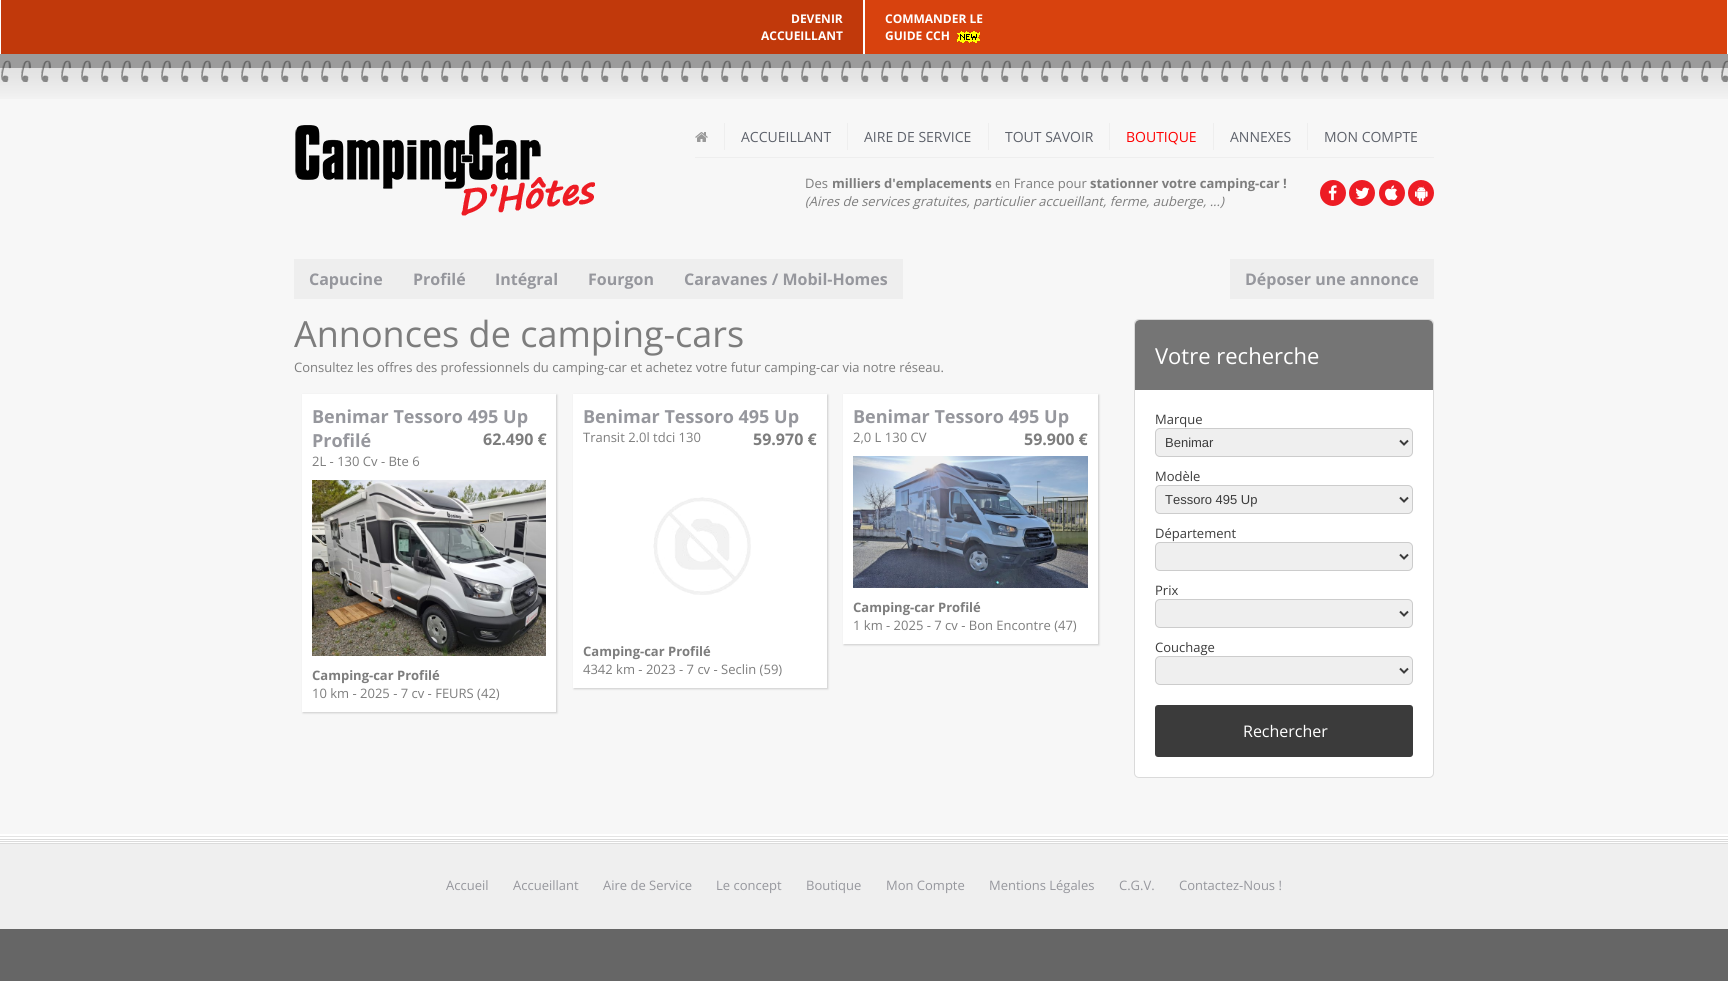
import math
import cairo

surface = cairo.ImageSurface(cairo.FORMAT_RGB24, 1728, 981)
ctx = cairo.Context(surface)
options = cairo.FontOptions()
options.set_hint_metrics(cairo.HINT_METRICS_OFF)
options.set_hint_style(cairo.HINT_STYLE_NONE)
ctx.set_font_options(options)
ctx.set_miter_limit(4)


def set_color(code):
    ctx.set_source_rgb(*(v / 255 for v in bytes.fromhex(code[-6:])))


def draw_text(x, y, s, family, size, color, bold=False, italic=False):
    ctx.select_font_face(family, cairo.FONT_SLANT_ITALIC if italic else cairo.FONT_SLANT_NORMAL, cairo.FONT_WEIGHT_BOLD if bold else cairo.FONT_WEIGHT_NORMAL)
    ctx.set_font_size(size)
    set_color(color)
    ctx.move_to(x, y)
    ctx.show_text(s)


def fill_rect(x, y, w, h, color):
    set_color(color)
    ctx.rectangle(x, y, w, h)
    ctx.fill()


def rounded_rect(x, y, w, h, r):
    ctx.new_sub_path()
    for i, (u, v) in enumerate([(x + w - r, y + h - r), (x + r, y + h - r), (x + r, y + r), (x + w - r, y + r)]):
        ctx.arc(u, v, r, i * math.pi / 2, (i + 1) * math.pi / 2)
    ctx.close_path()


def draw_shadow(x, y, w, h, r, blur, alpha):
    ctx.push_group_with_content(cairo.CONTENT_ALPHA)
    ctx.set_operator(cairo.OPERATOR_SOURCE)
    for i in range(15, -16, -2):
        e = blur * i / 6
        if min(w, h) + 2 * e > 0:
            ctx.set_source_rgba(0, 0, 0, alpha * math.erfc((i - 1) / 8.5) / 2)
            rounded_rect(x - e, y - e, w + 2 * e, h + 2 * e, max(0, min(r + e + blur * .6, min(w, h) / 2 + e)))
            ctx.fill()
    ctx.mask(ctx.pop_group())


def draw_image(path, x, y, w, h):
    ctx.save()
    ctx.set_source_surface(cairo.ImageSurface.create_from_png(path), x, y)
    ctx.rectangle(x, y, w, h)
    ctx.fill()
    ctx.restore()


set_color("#f7f7f7")
ctx.paint()
fill_rect(865, 0, 862, 54, "#d8420e")
fill_rect(1, 0, 862, 54, "#c1390b")
fill_rect(863, 0, 2, 54, "#ffffff")
fill_rect(0, 0, 1, 54, "#ffffff")
draw_text(791, 23, "DEVENIR", "Open Sans", 12, "#ffffff", bold=True)
draw_text(761, 40, "ACCUEILLANT", "Open Sans", 12, "#ffffff", bold=True)
fill_rect(1727, 0, 1, 54, "#ffffff")
draw_text(885, 23, "COMMANDER LE", "Open Sans", 12, "#ffffff", bold=True)
draw_text(885, 40, "GUIDE CCH", "Open Sans", 12, "#ffffff", bold=True)
draw_image("assets/img1.png", 957, 31, 23, 12)
draw_image("assets/img2.png", 0, 54, 1728, 45)
draw_image("assets/img3.png", 295, 125, 300, 91)
fill_rect(695, 157, 739, 1, "#eeeeee")
fill_rect(724, 123, 1, 27, "#eeeeee")
draw_image("assets/img4.png", 695, 132, 13, 10)
fill_rect(847, 123, 1, 27, "#eeeeee")
draw_text(741, 142, "ACCUEILLANT", "Open Sans", 14, "#5e626b")
fill_rect(988, 123, 1, 27, "#eeeeee")
draw_text(864, 142, "AIRE DE SERVICE", "Open Sans", 14, "#5e626b")
fill_rect(1109, 123, 1, 27, "#eeeeee")
draw_text(1005, 142, "TOUT SAVOIR", "Open Sans", 14, "#5e626b")
fill_rect(1213, 123, 1, 27, "#eeeeee")
draw_text(1126, 142, "BOUTIQUE", "Open Sans", 14, "#ff0000")
fill_rect(1307, 123, 1, 27, "#eeeeee")
draw_text(1230, 142, "ANNEXES", "Open Sans", 14, "#5e626b")
draw_text(1324, 142, "MON COMPTE", "Open Sans", 14, "#5e626b")
draw_text(805, 188, "Des", "Open Sans", 13, "#7d7d7d")
draw_text(832, 188, "milliers d'emplacements", "Open Sans", 13, "#7d7d7d", bold=True)
draw_text(995, 188, "en France pour", "Open Sans", 13, "#7d7d7d")
draw_text(1090, 188, "stationner votre camping-car !", "Open Sans", 13, "#7d7d7d", bold=True)
draw_text(805, 206, "(Aires de services gratuites, particulier accueillant, ferme, auberge, ...)", "Open Sans", 13, "#7d7d7d", italic=True)
set_color("#ed1c24")
ctx.new_path()
ctx.arc(1333, 193, 13, 0, 2 * math.pi)
ctx.fill()
draw_image("assets/img5.png", 1328, 185, 9, 16)
ctx.arc(1362, 193, 13, 0, 2 * math.pi)
ctx.fill()
draw_image("assets/img6.png", 1355, 187, 15, 12)
ctx.arc(1392, 193, 13, 0, 2 * math.pi)
ctx.fill()
draw_image("assets/img7.png", 1385, 185, 13, 16)
ctx.arc(1421, 193, 13, 0, 2 * math.pi)
ctx.fill()
draw_image("assets/img8.png", 1415, 186, 13, 16)
fill_rect(294, 259, 609, 40, "#eeeeee")
draw_text(309, 285, "Capucine", "Open Sans", 16, "#96979d", bold=True)
draw_text(413, 285, "Profilé", "Open Sans", 16, "#96979d", bold=True)
draw_text(495, 285, "Intégral", "Open Sans", 16, "#96979d", bold=True)
draw_text(588, 285, "Fourgon", "Open Sans", 16, "#96979d", bold=True)
draw_text(684, 285, "Caravanes / Mobil-Homes", "Open Sans", 16, "#96979d", bold=True)
fill_rect(1230, 259, 204, 40, "#eeeeee")
draw_text(1245, 285, "Déposer une annonce", "Open Sans", 16, "#96979d", bold=True)
draw_text(294, 347, "Annonces de camping-cars", "Open Sans", 36, "#7d7d7d")
draw_text(294, 372, "Consultez les offres des professionnels du camping-car et achetez votre futur camping-car via notre réseau.", "Open Sans", 13, "#7d7d7d")
set_color("#cccccc")
draw_shadow(303, 395, 254, 318, 0, 1, 1)
fill_rect(302, 394, 254, 318, "#ffffff")
draw_text(312, 423, "Benimar Tessoro 495 Up", "Open Sans", 18, "#96979d", bold=True)
draw_text(312, 447, "Profilé", "Open Sans", 18, "#96979d", bold=True)
draw_text(483, 445, "62.490 €", "Open Sans", 16, "#7d7d7d", bold=True)
draw_text(312, 466, "2L - 130 Cv - Bte 6", "Open Sans", 13, "#7d7d7d")
draw_image("assets/img9.png", 312, 480, 234, 176)
draw_text(312, 680, "Camping-car Profilé", "Open Sans", 13, "#7d7d7d", bold=True)
draw_text(312, 698, "10 km - 2025 - 7 cv - FEURS (42)", "Open Sans", 13, "#7d7d7d")
set_color("#cccccc")
draw_shadow(574, 395, 254, 294, 0, 1, 1)
fill_rect(573, 394, 254, 294, "#ffffff")
draw_text(583, 423, "Benimar Tessoro 495 Up", "Open Sans", 18, "#96979d", bold=True)
draw_text(583, 442, "Transit 2.0l tdci 130", "Open Sans", 13, "#7d7d7d")
draw_text(753, 445, "59.970 €", "Open Sans", 16, "#7d7d7d", bold=True)
draw_image("assets/img10.png", 653, 497, 98, 98)
draw_text(583, 656, "Camping-car Profilé", "Open Sans", 13, "#7d7d7d", bold=True)
draw_text(583, 674, "4342 km - 2023 - 7 cv - Seclin (59)", "Open Sans", 13, "#7d7d7d")
set_color("#cccccc")
draw_shadow(844, 395, 255, 250, 0, 1, 1)
fill_rect(843, 394, 255, 250, "#ffffff")
draw_text(853, 423, "Benimar Tessoro 495 Up", "Open Sans", 18, "#96979d", bold=True)
draw_text(853, 442, "2,0 L 130 CV", "Open Sans", 13, "#7d7d7d")
draw_text(1024, 445, "59.900 €", "Open Sans", 16, "#7d7d7d", bold=True)
draw_image("assets/img11.png", 853, 456, 235, 132)
draw_text(853, 612, "Camping-car Profilé", "Open Sans", 13, "#7d7d7d", bold=True)
draw_text(853, 630, "1 km - 2025 - 7 cv - Bon Encontre (47)", "Open Sans", 13, "#7d7d7d")
set_color("#ffffff")
rounded_rect(1134.5, 319.5, 299, 458, 4.5)
ctx.fill_preserve()
set_color("#dadada")
ctx.set_line_width(1)
ctx.stroke()
set_color("#757575")
ctx.new_path()
ctx.move_to(1140, 320)
ctx.line_to(1428, 320)
ctx.curve_to(1431, 320, 1433, 322, 1433, 325)
ctx.line_to(1433, 390)
ctx.line_to(1135, 390)
ctx.line_to(1135, 325)
ctx.curve_to(1135, 322, 1137, 320, 1140, 320)
ctx.close_path()
ctx.fill()
draw_text(1155, 364, "Votre recherche", "Open Sans", 22, "#ffffff")
draw_text(1155, 424, "Marque", "Open Sans", 13, "#3b3b3b")
set_color("#efefef")
rounded_rect(1155.5, 428.5, 257, 28, 4.5)
ctx.fill_preserve()
set_color("#cccccc")
ctx.stroke()
ctx.new_path()
ctx.move_to(1400, 440.5)
ctx.line_to(1404, 444.5)
ctx.line_to(1408, 440.5)
set_color("#3b3b3b")
ctx.set_line_width(2)
ctx.stroke()
draw_text(1165, 447, "Benimar", "Liberation Sans", 13, "#3b3b3b")
draw_text(1155, 481, "Modèle", "Open Sans", 13, "#3b3b3b")
set_color("#efefef")
rounded_rect(1155.5, 485.5, 257, 28, 4.5)
ctx.fill_preserve()
set_color("#cccccc")
ctx.set_line_width(1)
ctx.stroke()
ctx.new_path()
ctx.move_to(1400, 497.5)
ctx.line_to(1404, 501.5)
ctx.line_to(1408, 497.5)
set_color("#3b3b3b")
ctx.set_line_width(2)
ctx.stroke()
draw_text(1165, 504, "Tessoro 495 Up", "Liberation Sans", 13, "#3b3b3b")
draw_text(1155, 538, "Département", "Open Sans", 13, "#3b3b3b")
set_color("#efefef")
rounded_rect(1155.5, 542.5, 257, 28, 4.5)
ctx.fill_preserve()
set_color("#cccccc")
ctx.set_line_width(1)
ctx.stroke()
ctx.new_path()
ctx.move_to(1400, 554.5)
ctx.line_to(1404, 558.5)
ctx.line_to(1408, 554.5)
set_color("#3b3b3b")
ctx.set_line_width(2)
ctx.stroke()
draw_text(1155, 595, "Prix", "Open Sans", 13, "#3b3b3b")
set_color("#efefef")
rounded_rect(1155.5, 599.5, 257, 28, 4.5)
ctx.fill_preserve()
set_color("#cccccc")
ctx.set_line_width(1)
ctx.stroke()
ctx.new_path()
ctx.move_to(1400, 611.5)
ctx.line_to(1404, 615.5)
ctx.line_to(1408, 611.5)
set_color("#3b3b3b")
ctx.set_line_width(2)
ctx.stroke()
draw_text(1155, 652, "Couchage", "Open Sans", 13, "#3b3b3b")
set_color("#efefef")
rounded_rect(1155.5, 656.5, 257, 28, 4.5)
ctx.fill_preserve()
set_color("#cccccc")
ctx.set_line_width(1)
ctx.stroke()
ctx.new_path()
ctx.move_to(1400, 668.5)
ctx.line_to(1404, 672.5)
ctx.line_to(1408, 668.5)
set_color("#3b3b3b")
ctx.set_line_width(2)
ctx.stroke()
rounded_rect(1155, 705, 258, 52, 3)
ctx.fill()
draw_text(1243, 737, "Rechercher", "Open Sans", 16, "#ffffff")
fill_rect(0, 844, 1728, 85, "#efefef")
draw_image("assets/img12.png", 0, 834, 1728, 10)
draw_text(446, 890, "Accueil", "Open Sans", 13, "#96979d")
draw_text(513, 890, "Accueillant", "Open Sans", 13, "#96979d")
draw_text(603, 890, "Aire de Service", "Open Sans", 13, "#96979d")
draw_text(716, 890, "Le concept", "Open Sans", 13, "#96979d")
draw_text(806, 890, "Boutique", "Open Sans", 13, "#96979d")
draw_text(886, 890, "Mon Compte", "Open Sans", 13, "#96979d")
draw_text(989, 890, "Mentions Légales", "Open Sans", 13, "#96979d")
draw_text(1119, 890, "C.G.V.", "Open Sans", 13, "#96979d")
draw_text(1179, 890, "Contactez-Nous !", "Open Sans", 13, "#96979d")
fill_rect(0, 929, 1728, 52, "#666666")
surface.write_to_png("output.png")
